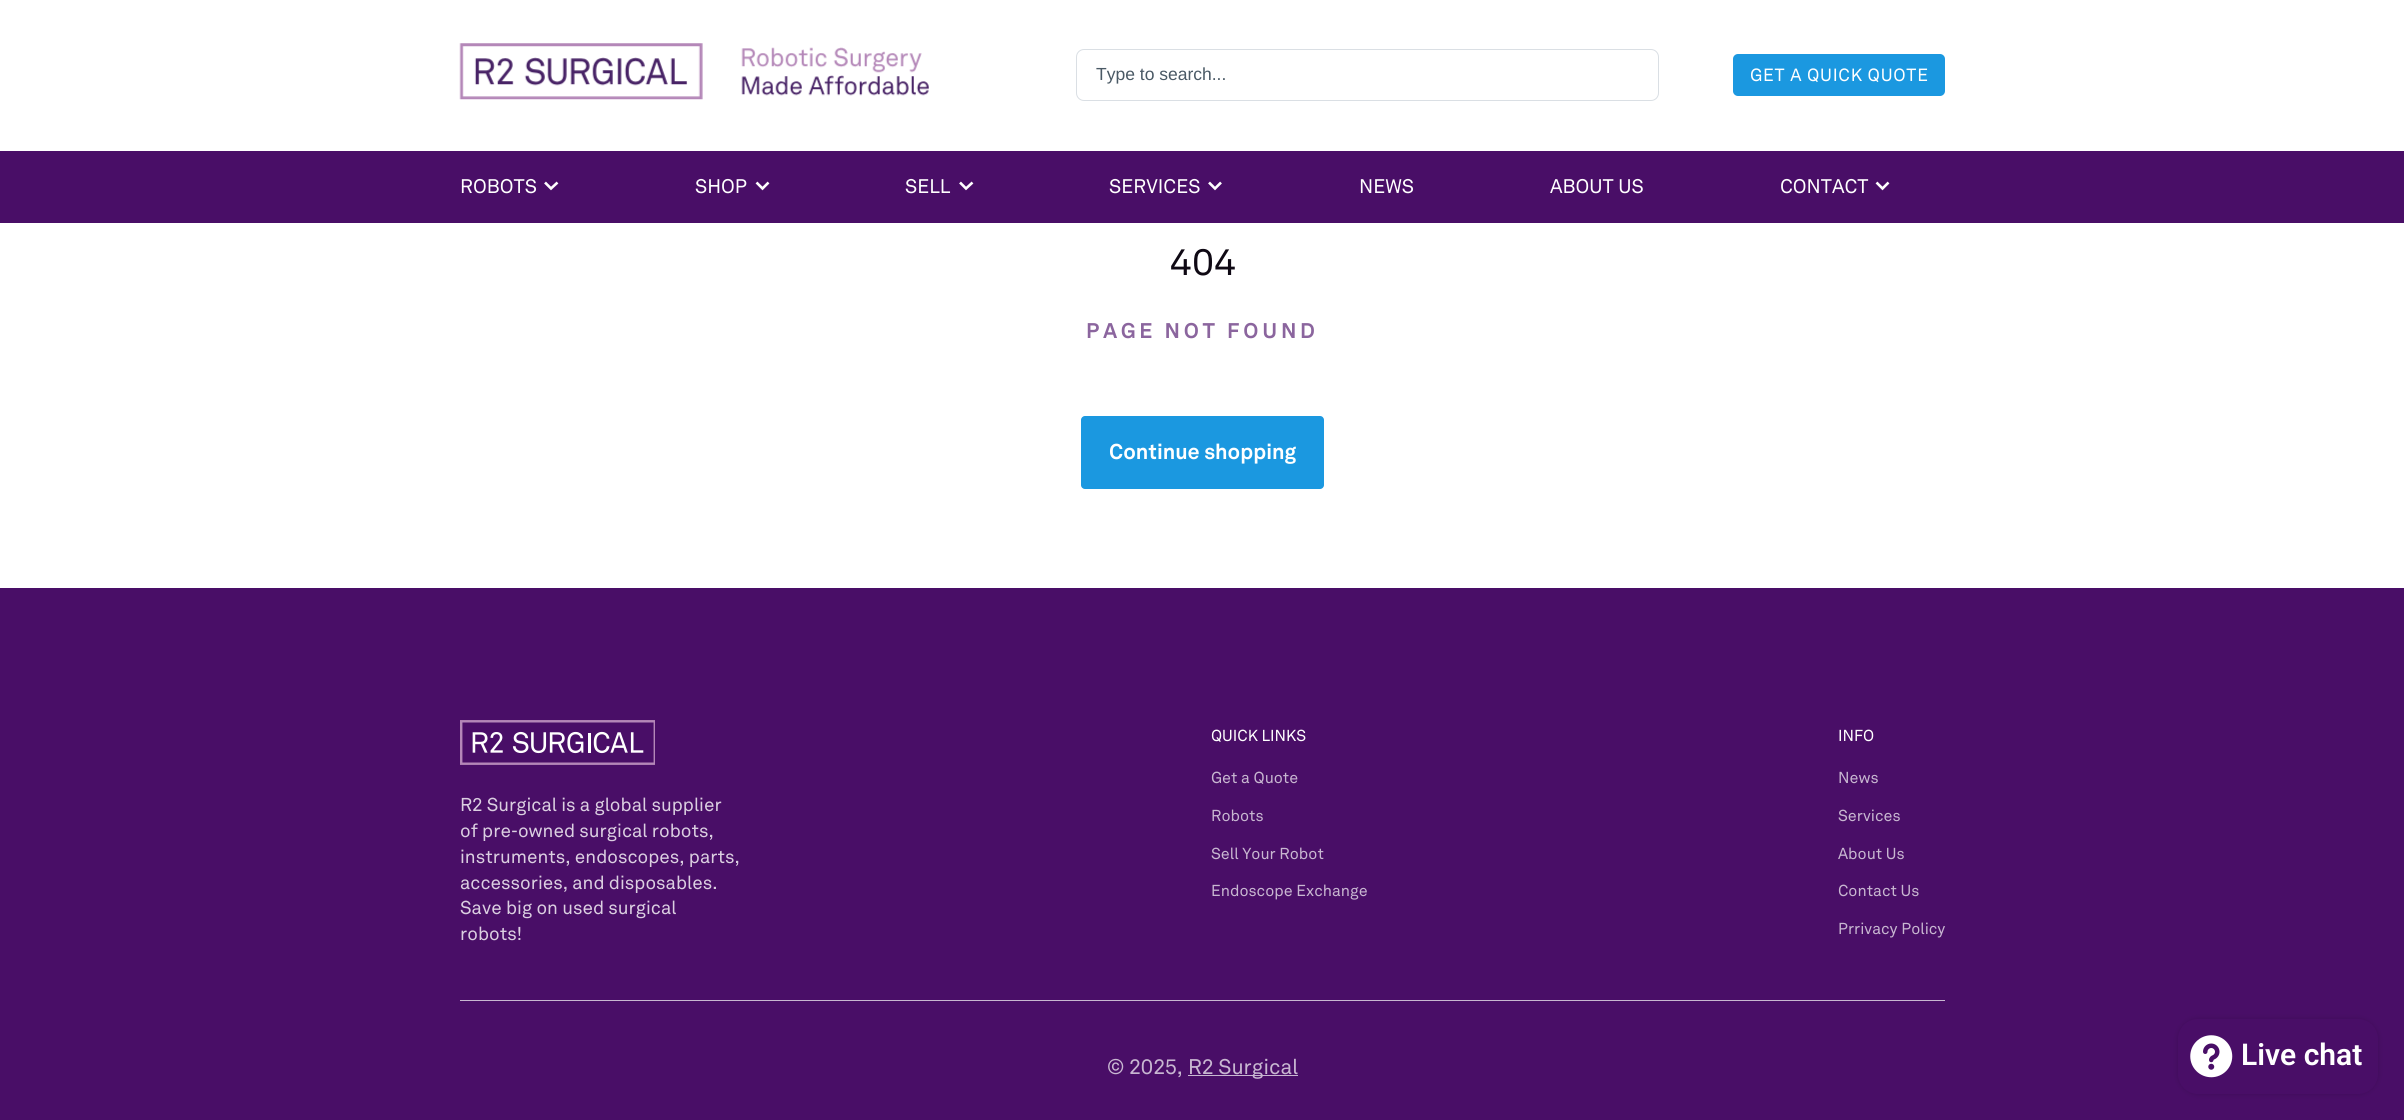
import math
import cairo

surface = cairo.ImageSurface(cairo.FORMAT_RGB24, 2404, 1120)
ctx = cairo.Context(surface)
options = cairo.FontOptions()
options.set_hint_metrics(cairo.HINT_METRICS_OFF)
options.set_hint_style(cairo.HINT_STYLE_NONE)
ctx.set_font_options(options)
ctx.set_miter_limit(4)


def set_color(code):
    ctx.set_source_rgb(*(v / 255 for v in bytes.fromhex(code[-6:])))


def draw_text(x, y, s, family, size, color, bold=False, italic=False):
    ctx.select_font_face(family, cairo.FONT_SLANT_ITALIC if italic else cairo.FONT_SLANT_NORMAL, cairo.FONT_WEIGHT_BOLD if bold else cairo.FONT_WEIGHT_NORMAL)
    ctx.set_font_size(size)
    set_color(color)
    ctx.move_to(x, y)
    ctx.show_text(s)


def draw_spaced(x, y, s, letter, word):
    ctx.move_to(x, y)
    for ch in s:
        ctx.show_text(ch)
        ctx.rel_move_to(letter + word * (ch == ' '), 0)


def fill_rect(x, y, w, h, color):
    set_color(color)
    ctx.rectangle(x, y, w, h)
    ctx.fill()


def rounded_rect(x, y, w, h, r):
    ctx.new_sub_path()
    for i, (u, v) in enumerate([(x + w - r, y + h - r), (x + r, y + h - r), (x + r, y + r), (x + w - r, y + r)]):
        ctx.arc(u, v, r, i * math.pi / 2, (i + 1) * math.pi / 2)
    ctx.close_path()


def draw_shadow(x, y, w, h, r, blur, alpha):
    ctx.push_group_with_content(cairo.CONTENT_ALPHA)
    ctx.set_operator(cairo.OPERATOR_SOURCE)
    for i in range(15, -16, -2):
        e = blur * i / 6
        if min(w, h) + 2 * e > 0:
            ctx.set_source_rgba(0, 0, 0, alpha * math.erfc((i - 1) / 8.5) / 2)
            rounded_rect(x - e, y - e, w + 2 * e, h + 2 * e, max(0, min(r + e + blur * .6, min(w, h) / 2 + e)))
            ctx.fill()
    ctx.mask(ctx.pop_group())


def draw_image(path, x, y, w, h):
    ctx.save()
    ctx.set_source_surface(cairo.ImageSurface.create_from_png(path), x, y)
    ctx.rectangle(x, y, w, h)
    ctx.fill()
    ctx.restore()


set_color("#ffffff")
ctx.paint()
draw_image("assets/img1.png", 459, 43, 470, 57)
rounded_rect(1076.5, 49.5, 582, 51, 7.5)
set_color("#dadfe4")
ctx.set_line_width(1)
ctx.stroke()
draw_text(1096, 80, "Type to search...", "Liberation Sans", 17.5, "#4a5965")
set_color("#1b98e0")
rounded_rect(1733, 54, 212, 42, 5)
ctx.fill()
ctx.select_font_face("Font")
set_color("#ffffff")
draw_spaced(1750, 81, "GET A QUICK QUOTE", 0.75, 0)
fill_rect(0, 151, 2404, 72, "#490e67")
draw_text(460, 193, "ROBOTS", "Font", 19.5, "#ffffff")
ctx.new_path()
ctx.move_to(557.5, 182.5)
ctx.line_to(551, 188.5)
ctx.line_to(545, 182.5)
ctx.set_line_width(2.6)
ctx.stroke()
draw_text(695, 193, "SHOP", "Font", 19.5, "#ffffff")
ctx.new_path()
ctx.move_to(768.5, 182.5)
ctx.line_to(762.5, 188.5)
ctx.line_to(756.5, 182.5)
ctx.stroke()
draw_text(905, 193, "SELL", "Font", 19.5, "#ffffff")
ctx.new_path()
ctx.move_to(972.5, 182.5)
ctx.line_to(966, 188.5)
ctx.line_to(960, 182.5)
ctx.stroke()
draw_text(1109, 193, "SERVICES", "Font", 19.5, "#ffffff")
ctx.new_path()
ctx.move_to(1221, 182.5)
ctx.line_to(1215, 188.5)
ctx.line_to(1209, 182.5)
ctx.stroke()
draw_text(1359, 193, "NEWS", "Font", 19.5, "#ffffff")
draw_text(1550, 193, "ABOUT US", "Font", 19.5, "#ffffff")
draw_text(1780, 193, "CONTACT", "Font", 19.5, "#ffffff")
ctx.new_path()
ctx.move_to(1888.5, 182.5)
ctx.line_to(1882.5, 188.5)
ctx.line_to(1876.5, 182.5)
ctx.stroke()
draw_text(1170, 275, "404", "Font", 37, "#0f0914")
ctx.select_font_face("Font", cairo.FONT_SLANT_NORMAL, cairo.FONT_WEIGHT_BOLD)
ctx.set_font_size(21)
set_color("#8b659e")
draw_spaced(1086, 338, "PAGE NOT FOUND", 3.75, 0)
set_color("#1b98e0")
rounded_rect(1081, 416, 243, 73, 4)
ctx.fill()
draw_text(1109, 459, "Continue shopping", "Font", 21.25, "#ffffff", bold=True)
fill_rect(0, 588, 2404, 532, "#490e67")
draw_image("assets/img2.png", 460, 720, 195, 45)
draw_text(460, 811, "R2 Surgical is a global supplier", "Font", 18.5, "#dbcfe1")
draw_text(460, 837, "of pre-owned surgical robots,", "Font", 18.5, "#dbcfe1")
draw_text(460, 863, "instruments, endoscopes, parts,", "Font", 18.5, "#dbcfe1")
draw_text(460, 889, "accessories, and disposables.", "Font", 18.5, "#dbcfe1")
draw_text(460, 914, "Save big on used surgical", "Font", 18.5, "#dbcfe1")
draw_text(460, 940, "robots!", "Font", 18.5, "#dbcfe1")
draw_text(1211, 741, "QUICK LINKS", "Font", 15.75, "#ffffff")
draw_text(1211, 783, "Get a Quote", "Font", 15.75, "#c8b7d1")
draw_text(1211, 821, "Robots", "Font", 15.75, "#c8b7d1")
draw_text(1211, 859, "Sell Your Robot", "Font", 15.75, "#c8b7d1")
draw_text(1211, 896, "Endoscope Exchange", "Font", 15.75, "#c8b7d1")
draw_text(1838, 741, "INFO", "Font", 15.75, "#ffffff")
draw_text(1838, 783, "News", "Font", 15.75, "#c8b7d1")
draw_text(1838, 821, "Services", "Font", 15.75, "#c8b7d1")
draw_text(1838, 859, "About Us", "Font", 15.75, "#c8b7d1")
draw_text(1838, 896, "Contact Us", "Font", 15.75, "#c8b7d1")
draw_text(1838, 934, "Prrivacy Policy", "Font", 15.75, "#c8b7d1")
fill_rect(460, 1000, 1485, 1, "#c8b7d1")
draw_text(1107, 1074, "© 2025,", "Font", 21, "#c8b7d1")
fill_rect(1188, 1075, 110, 1, "#c8b7d1")
draw_text(1188, 1074, "R2 Surgical", "Font", 21, "#c8b7d1")
set_color("#000000")
draw_shadow(2178, 1019, 200, 75, 20, 3, 0.15)
set_color("#490e67")
rounded_rect(2178, 1019, 200, 75, 20)
ctx.fill()
draw_image("assets/img3.png", 2190, 1035, 43, 43)
draw_text(2241, 1065, "Live chat", "Roboto SemiBold", 30, "#ffffff")
surface.write_to_png("output.png")
